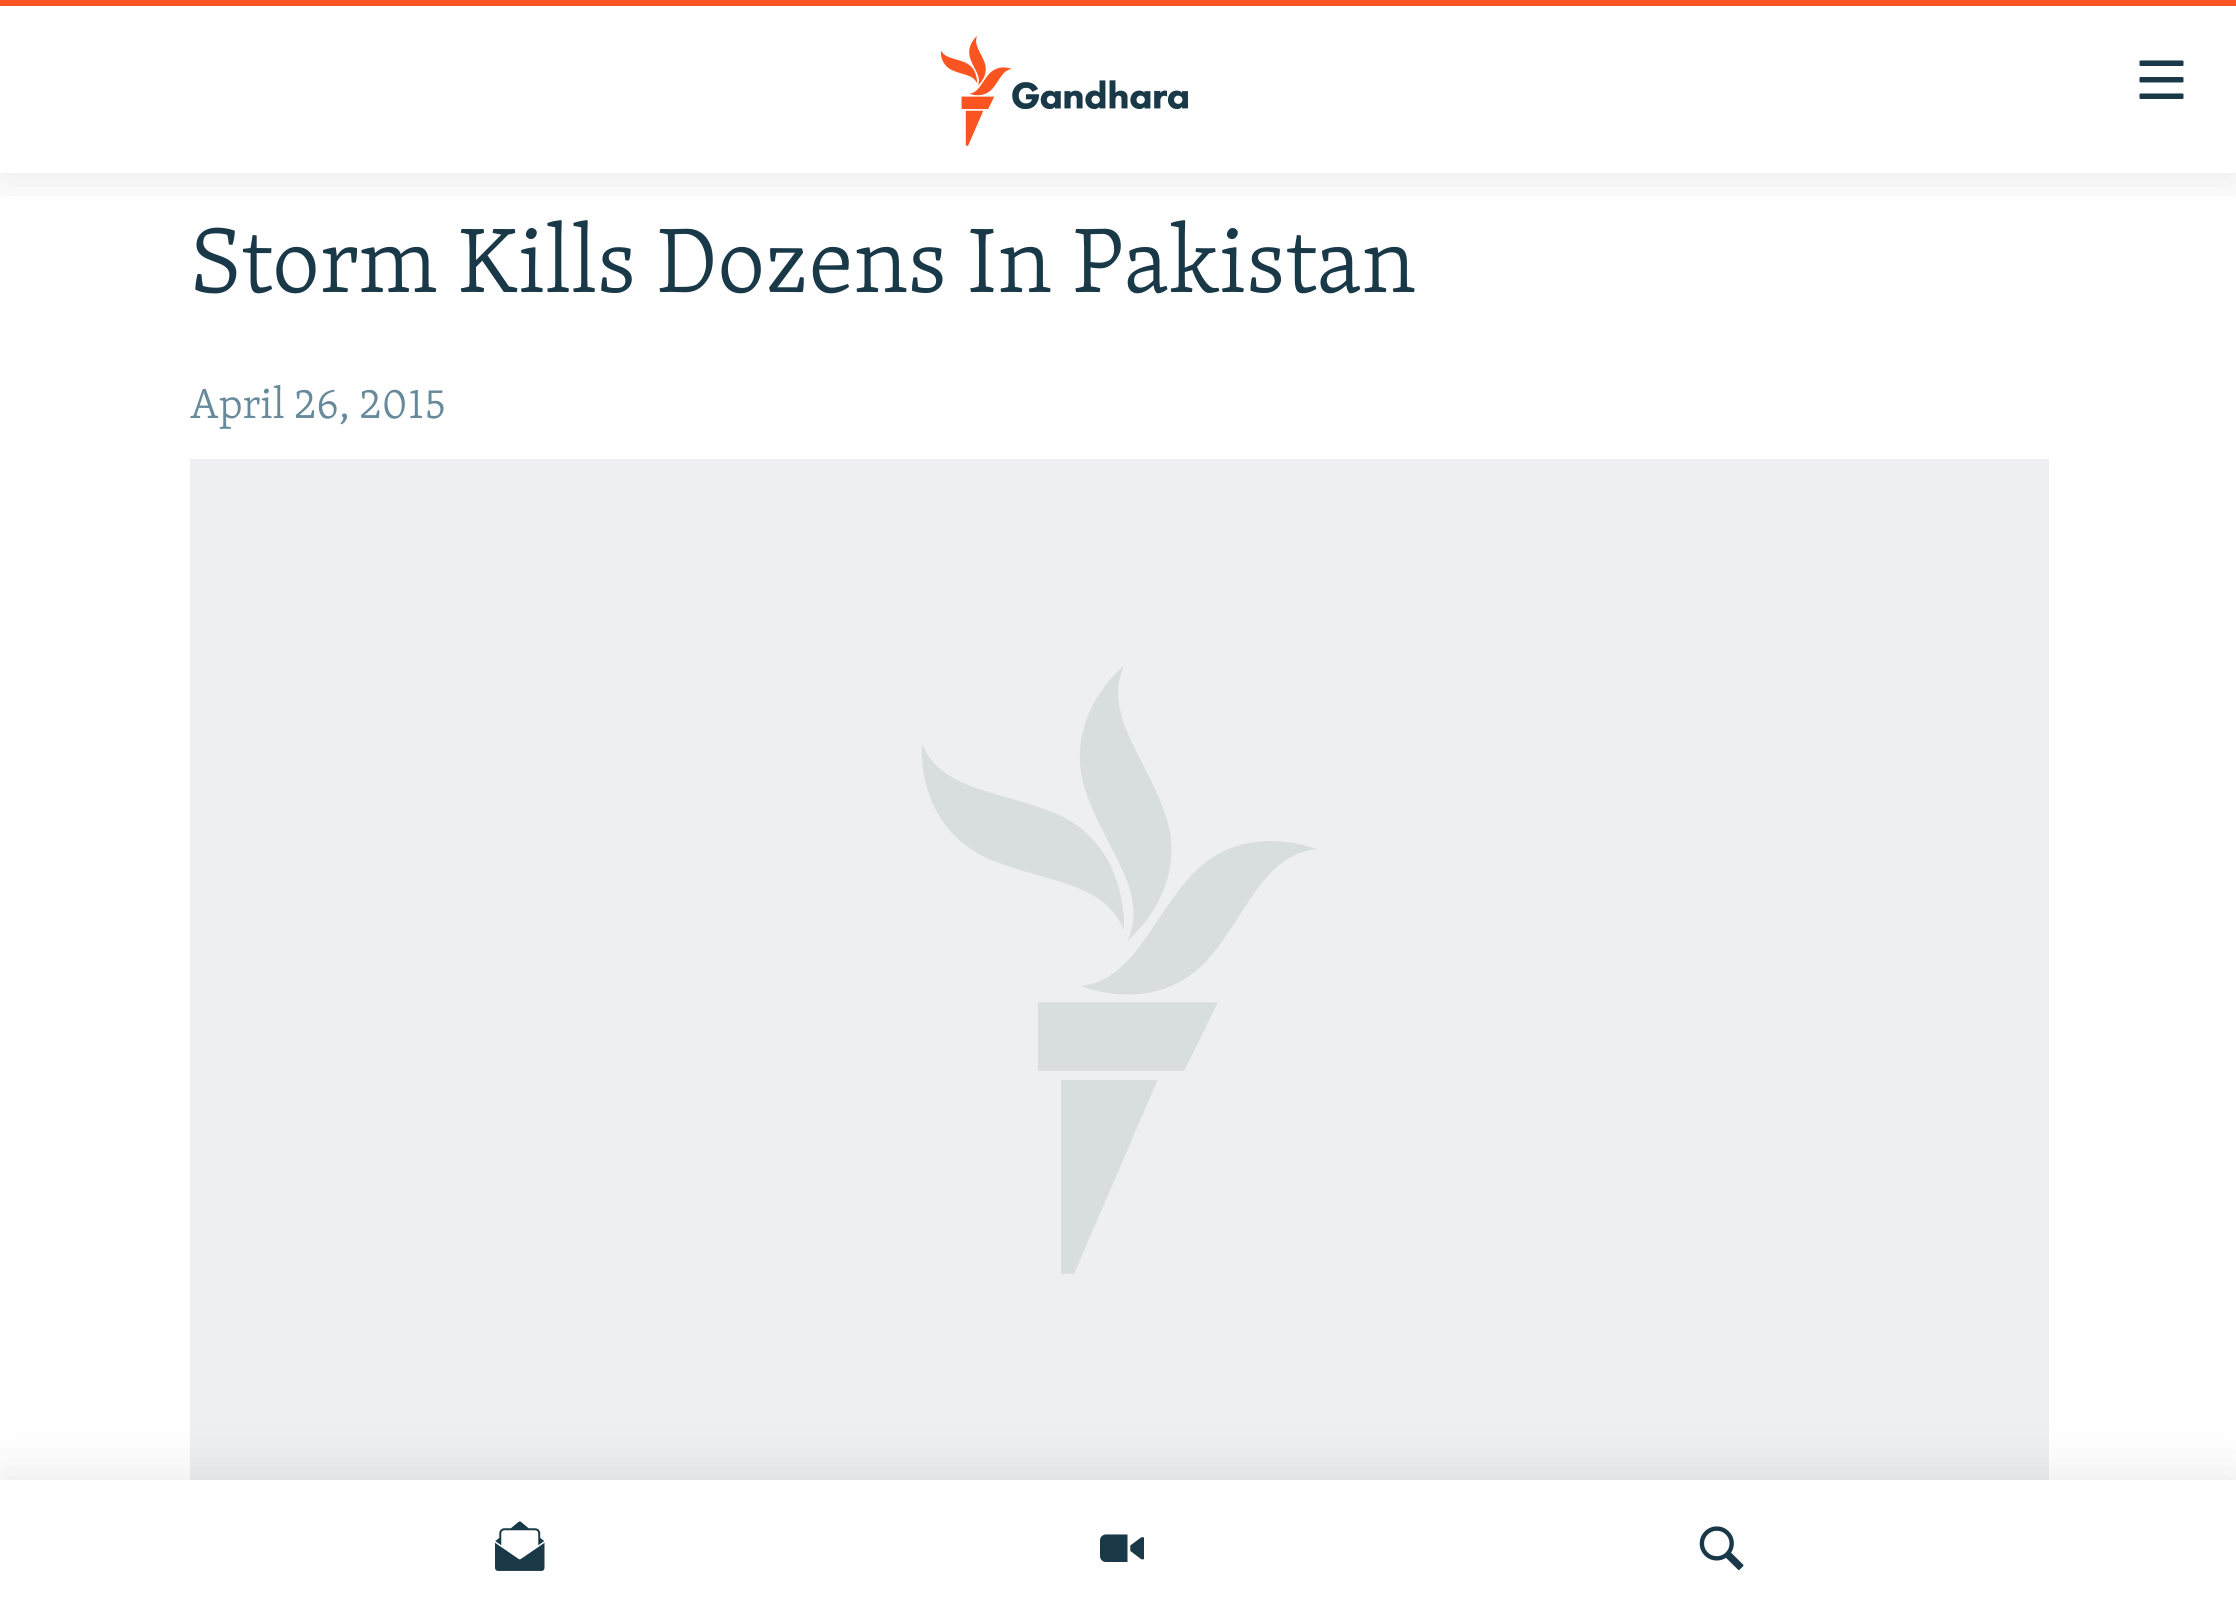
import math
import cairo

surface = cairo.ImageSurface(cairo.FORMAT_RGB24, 2236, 1616)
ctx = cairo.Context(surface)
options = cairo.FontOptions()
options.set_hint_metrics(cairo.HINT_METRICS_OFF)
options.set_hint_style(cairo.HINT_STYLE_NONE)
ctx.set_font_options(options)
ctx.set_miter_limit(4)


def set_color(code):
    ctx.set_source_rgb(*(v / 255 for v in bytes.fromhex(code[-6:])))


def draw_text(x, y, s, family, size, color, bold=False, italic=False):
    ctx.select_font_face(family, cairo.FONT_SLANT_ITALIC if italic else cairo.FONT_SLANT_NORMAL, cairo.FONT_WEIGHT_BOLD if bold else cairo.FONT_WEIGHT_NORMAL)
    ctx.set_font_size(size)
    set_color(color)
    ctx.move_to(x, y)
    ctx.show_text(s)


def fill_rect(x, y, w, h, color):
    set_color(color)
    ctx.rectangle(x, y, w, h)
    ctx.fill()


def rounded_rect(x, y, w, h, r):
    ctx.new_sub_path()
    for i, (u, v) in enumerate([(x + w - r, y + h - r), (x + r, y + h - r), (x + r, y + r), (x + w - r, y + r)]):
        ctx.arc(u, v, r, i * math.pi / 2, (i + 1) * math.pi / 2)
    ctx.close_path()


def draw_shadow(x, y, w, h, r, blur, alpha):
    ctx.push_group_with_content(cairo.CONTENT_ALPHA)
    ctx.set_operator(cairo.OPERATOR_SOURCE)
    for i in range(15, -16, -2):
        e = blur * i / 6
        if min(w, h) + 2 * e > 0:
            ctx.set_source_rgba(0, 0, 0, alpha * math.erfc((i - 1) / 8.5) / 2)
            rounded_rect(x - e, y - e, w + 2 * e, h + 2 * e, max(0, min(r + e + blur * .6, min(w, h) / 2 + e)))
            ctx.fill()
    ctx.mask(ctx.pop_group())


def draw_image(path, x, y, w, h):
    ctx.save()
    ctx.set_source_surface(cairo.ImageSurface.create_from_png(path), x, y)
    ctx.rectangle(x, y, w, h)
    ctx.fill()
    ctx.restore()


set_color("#ffffff")
ctx.paint()
ctx.save()
ctx.rectangle(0, 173, 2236, 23)
ctx.clip()
set_color("#000000")
draw_shadow(0, 0, 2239, 173, 0, 27.5, 0.1)
ctx.restore()
fill_rect(0, 0, 2236, 6, "#fa5420")
draw_image("assets/img1.png", 941, 36, 247, 110)
draw_image("assets/img2.png", 2139, 60, 45, 39)
fill_rect(190, 459, 1859, 1021, "#edeff0")
set_color("#000000")
draw_shadow(0, 1480, 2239, 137, 0, 27.5, 0.1)
fill_rect(0, 1480, 2236, 136, "#ffffff")
draw_image("assets/img3.png", 495, 1521, 50, 50)
draw_image("assets/img4.png", 1100, 1534, 44, 28)
draw_image("assets/img5.png", 1699, 1526, 45, 45)
draw_text(190, 292, "Storm Kills Dozens In Pakistan", "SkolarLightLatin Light", 94, "#1a3948")
draw_text(190, 418, "April 26, 2015", "SkolarLightLatin Light", 43.25, "#678a9b")
draw_image("assets/img6.png", 921, 666, 395, 608)
surface.write_to_png("output.png")
